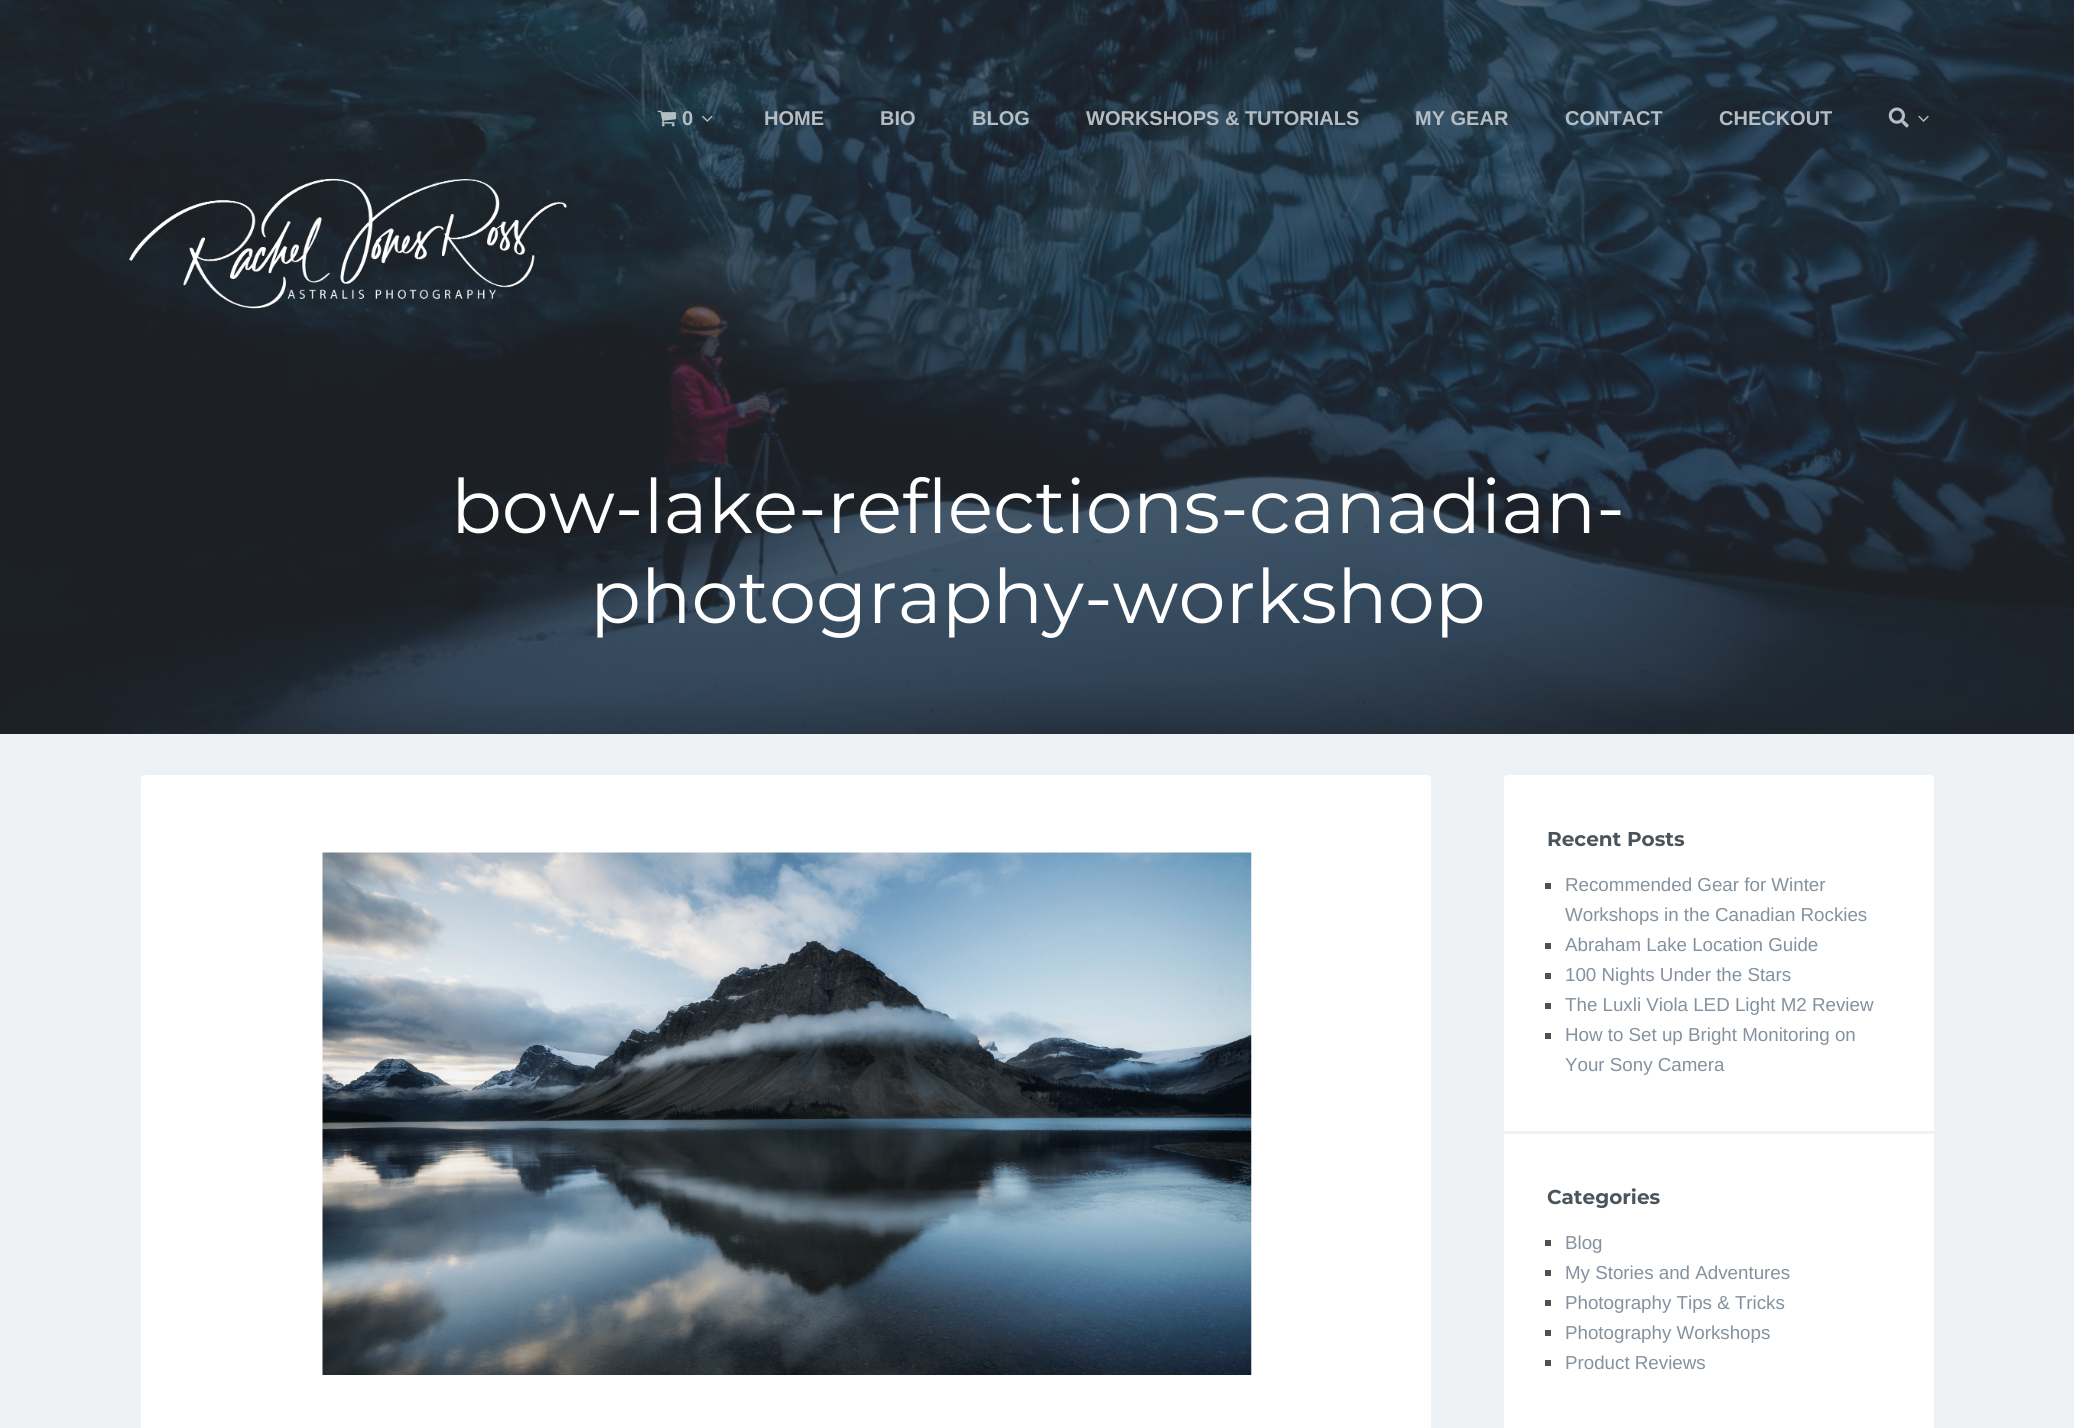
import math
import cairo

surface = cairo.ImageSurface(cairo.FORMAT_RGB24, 2074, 1428)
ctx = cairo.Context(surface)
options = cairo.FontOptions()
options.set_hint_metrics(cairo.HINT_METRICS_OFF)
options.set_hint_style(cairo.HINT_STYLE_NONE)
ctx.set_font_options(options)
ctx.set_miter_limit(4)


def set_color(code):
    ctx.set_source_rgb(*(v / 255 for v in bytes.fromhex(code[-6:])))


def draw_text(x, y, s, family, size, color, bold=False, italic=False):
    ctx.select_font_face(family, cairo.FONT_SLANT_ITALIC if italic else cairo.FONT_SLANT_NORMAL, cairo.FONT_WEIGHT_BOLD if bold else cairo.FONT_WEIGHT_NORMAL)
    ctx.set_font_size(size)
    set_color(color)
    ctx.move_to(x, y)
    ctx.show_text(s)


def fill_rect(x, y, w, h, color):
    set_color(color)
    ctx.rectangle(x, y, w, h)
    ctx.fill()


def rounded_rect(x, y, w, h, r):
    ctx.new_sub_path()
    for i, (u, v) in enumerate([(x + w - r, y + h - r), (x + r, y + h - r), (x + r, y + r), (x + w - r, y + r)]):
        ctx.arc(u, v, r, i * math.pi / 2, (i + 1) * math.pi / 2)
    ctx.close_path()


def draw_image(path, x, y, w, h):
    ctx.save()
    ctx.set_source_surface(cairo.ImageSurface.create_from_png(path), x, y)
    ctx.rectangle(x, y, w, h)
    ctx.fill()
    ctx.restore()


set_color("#eef2f5")
ctx.paint()
fill_rect(0, 0, 2074, 734, "#282e34")
draw_image("assets/img1.png", 0, 0, 2074, 734)
draw_image("assets/img2.png", 657, 110, 20, 17)
draw_text(682, 125, "0", "Arimo", 20, "#b5bdc3", bold=True)
draw_image("assets/img3.png", 702, 115, 11, 7)
draw_text(764, 125, "HOME", "Arimo", 20, "#b5bdc3", bold=True)
draw_text(880, 125, "BIO", "Arimo", 20, "#b5bdc3", bold=True)
draw_text(972, 125, "BLOG", "Arimo", 20, "#b5bdc3", bold=True)
draw_text(1086, 125, "WORKSHOPS & TUTORIALS", "Arimo", 20, "#b5bdc3", bold=True)
draw_text(1415, 125, "MY GEAR", "Arimo", 20, "#b5bdc3", bold=True)
draw_text(1565, 125, "CONTACT", "Arimo", 20, "#b5bdc3", bold=True)
draw_text(1719, 125, "CHECKOUT", "Arimo", 20, "#b5bdc3", bold=True)
draw_image("assets/img4.png", 1888, 107, 21, 21)
draw_image("assets/img5.png", 1918, 115, 11, 7)
draw_image("assets/img6.png", 129, 178, 438, 131)
draw_text(451, 533, "bow-lake-reflections-canadian-", "Montserrat", 75, "#ffffff")
draw_text(590, 623, "photography-workshop", "Montserrat", 75, "#ffffff")
rounded_rect(141, 775, 1290, 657, 4)
ctx.fill()
draw_image("assets/img7.png", 322, 852, 930, 523)
rounded_rect(1504, 775, 430, 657, 4)
ctx.fill()
fill_rect(1504, 1131, 430, 3, "#eef2f5")
draw_text(1547, 846, "Recent Posts", "Montserrat", 20, "#4a545a", bold=True)
fill_rect(1545, 883, 6, 6, "#4c5357")
draw_text(1565, 891, "Recommended Gear for Winter", "Arimo", 18.75, "#84919e")
draw_text(1565, 921, "Workshops in the Canadian Rockies", "Arimo", 18.75, "#84919e")
fill_rect(1545, 943, 6, 6, "#4c5357")
draw_text(1565, 951, "Abraham Lake Location Guide", "Arimo", 18.75, "#84919e")
fill_rect(1545, 973, 6, 6, "#4c5357")
draw_text(1565, 981, "100 Nights Under the Stars", "Arimo", 18.75, "#84919e")
fill_rect(1545, 1003, 6, 6, "#4c5357")
draw_text(1565, 1011, "The Luxli Viola LED Light M2 Review", "Arimo", 18.75, "#84919e")
fill_rect(1545, 1033, 6, 6, "#4c5357")
draw_text(1565, 1041, "How to Set up Bright Monitoring on", "Arimo", 18.75, "#84919e")
draw_text(1565, 1071, "Your Sony Camera", "Arimo", 18.75, "#84919e")
draw_text(1547, 1204, "Categories", "Montserrat", 20, "#4a545a", bold=True)
fill_rect(1545, 1240, 6, 6, "#4c5357")
draw_text(1565, 1249, "Blog", "Arimo", 18.75, "#84919e")
fill_rect(1545, 1270, 6, 6, "#4c5357")
draw_text(1565, 1279, "My Stories and Adventures", "Arimo", 18.75, "#84919e")
fill_rect(1545, 1300, 6, 6, "#4c5357")
draw_text(1565, 1309, "Photography Tips & Tricks", "Arimo", 18.75, "#84919e")
fill_rect(1545, 1330, 6, 6, "#4c5357")
draw_text(1565, 1339, "Photography Workshops", "Arimo", 18.75, "#84919e")
fill_rect(1545, 1360, 6, 6, "#4c5357")
draw_text(1565, 1369, "Product Reviews", "Arimo", 18.75, "#84919e")
surface.write_to_png("output.png")
